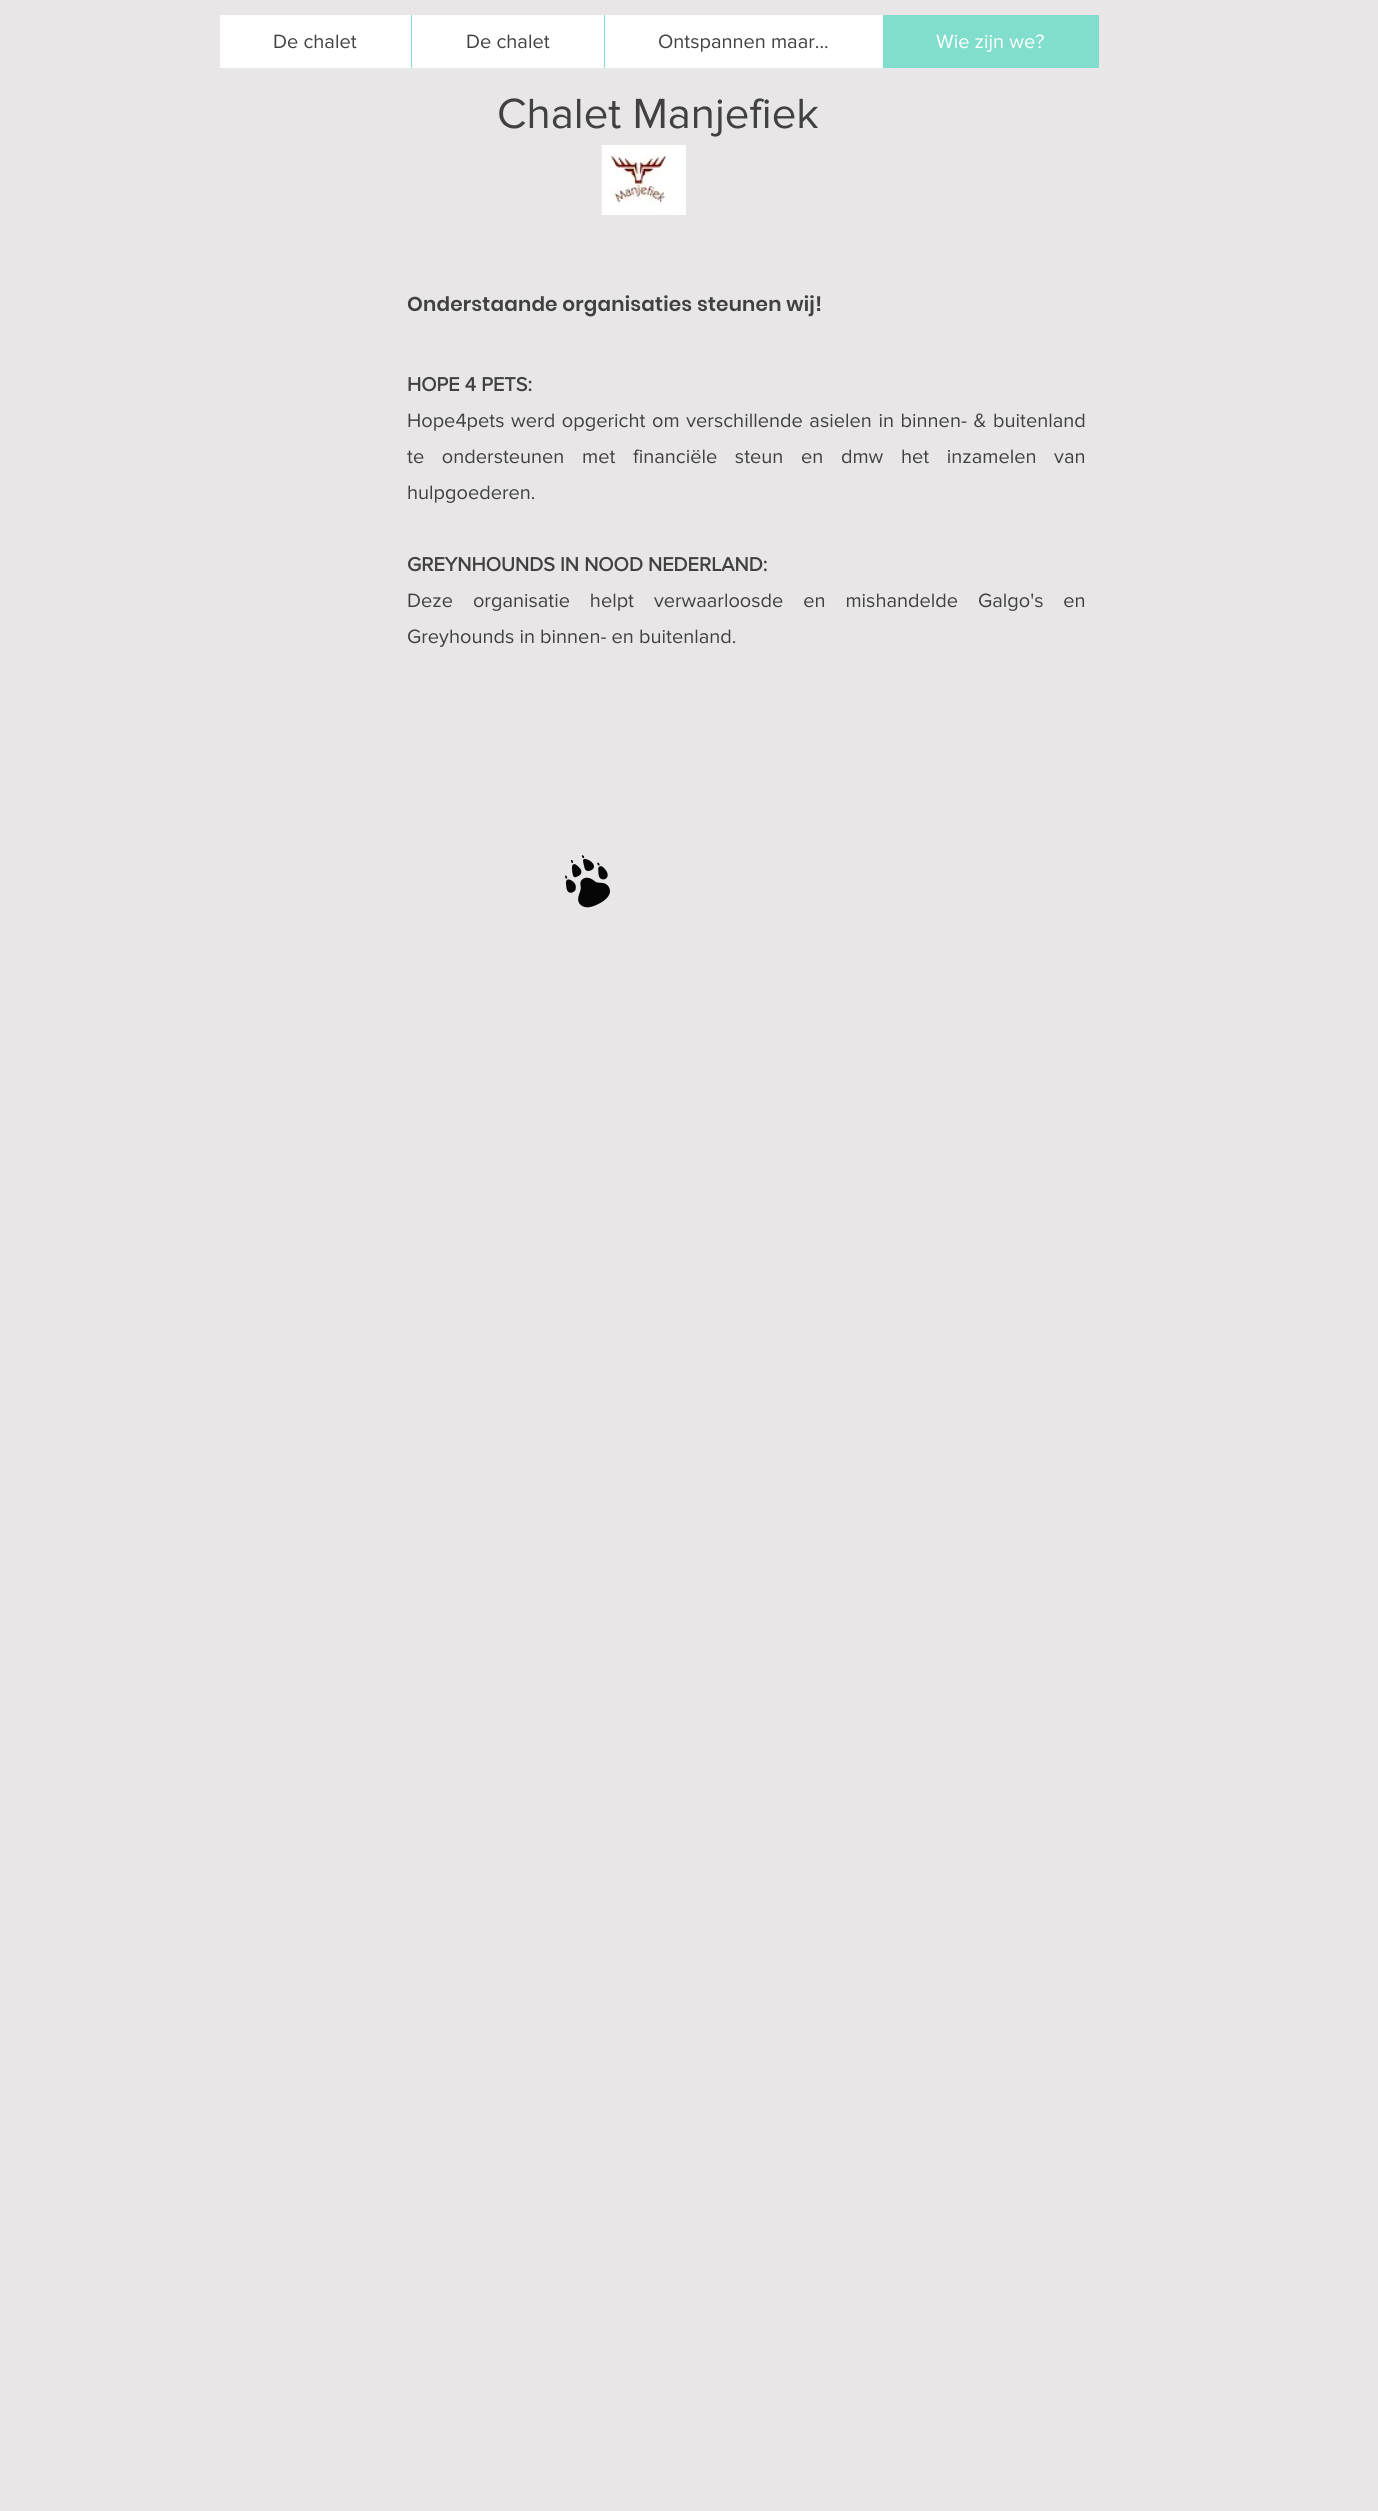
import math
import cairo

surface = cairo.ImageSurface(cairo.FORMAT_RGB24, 1378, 2511)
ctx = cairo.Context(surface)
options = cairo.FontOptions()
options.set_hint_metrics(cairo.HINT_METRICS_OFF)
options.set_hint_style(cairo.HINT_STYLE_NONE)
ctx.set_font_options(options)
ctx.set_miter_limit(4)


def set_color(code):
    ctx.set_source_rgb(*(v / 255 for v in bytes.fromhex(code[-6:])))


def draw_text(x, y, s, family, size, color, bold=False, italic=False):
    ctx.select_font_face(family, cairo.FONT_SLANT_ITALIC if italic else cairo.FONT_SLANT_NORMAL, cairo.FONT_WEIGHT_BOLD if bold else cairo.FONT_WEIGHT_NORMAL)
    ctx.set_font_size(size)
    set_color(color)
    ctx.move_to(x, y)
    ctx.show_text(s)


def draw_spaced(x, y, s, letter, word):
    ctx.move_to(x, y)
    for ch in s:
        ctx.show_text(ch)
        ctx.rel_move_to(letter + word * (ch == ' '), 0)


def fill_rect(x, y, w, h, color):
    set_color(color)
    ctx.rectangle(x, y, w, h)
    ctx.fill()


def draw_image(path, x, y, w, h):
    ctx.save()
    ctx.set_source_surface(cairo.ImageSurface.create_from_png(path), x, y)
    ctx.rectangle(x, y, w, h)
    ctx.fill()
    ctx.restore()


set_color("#e8e6e6")
ctx.paint()
fill_rect(220, 15, 663, 53, "#ffffff")
draw_text(273, 48, "De chalet", "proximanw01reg", 20, "#414141")
fill_rect(411, 15, 1, 53, "#81decd")
draw_text(466, 48, "De chalet", "proximanw01reg", 20, "#414141")
fill_rect(604, 15, 1, 53, "#81decd")
draw_text(658, 48, "Ontspannen maar...", "proximanw01reg", 20, "#414141")
fill_rect(883, 15, 216, 53, "#81decd")
draw_text(936, 48, "Wie zijn we?", "proximanw01reg", 20, "#ffffff")
draw_text(497, 128, "Chalet Manjefiek", "proximanw01reg", 43.75, "#414141")
draw_image("assets/img1.png", 601, 145, 85, 70)
ctx.select_font_face("Poppins SemiBold")
ctx.set_font_size(20)
draw_spaced(407, 311, "Onderstaande organisaties steunen wij!", 0.2, 0)
draw_text(407, 391, "HOPE 4 PETS:", "proximanw01reg", 20, "#414141", bold=True)
ctx.select_font_face("proximanw01reg")
draw_spaced(407, 427, "Hope4pets werd opgericht om verschillende asielen in binnen- & buitenland", 0, 1.5)
draw_spaced(407, 463, "te ondersteunen met financiële steun en dmw het inzamelen van", 0, 12.5)
draw_text(407, 499, "hulpgoederen.", "proximanw01reg", 20, "#414141")
draw_text(407, 571, "GREYNHOUNDS IN NOOD NEDERLAND:", "proximanw01reg", 20, "#414141", bold=True)
ctx.select_font_face("proximanw01reg")
draw_spaced(407, 607, "Deze organisatie helpt verwaarloosde en mishandelde Galgo's en", 0, 14.75)
draw_text(407, 643, "Greyhounds in binnen- en buitenland.", "proximanw01reg", 20, "#414141")
draw_image("assets/img2.png", 565, 855, 45, 53)
surface.write_to_png("output.png")
